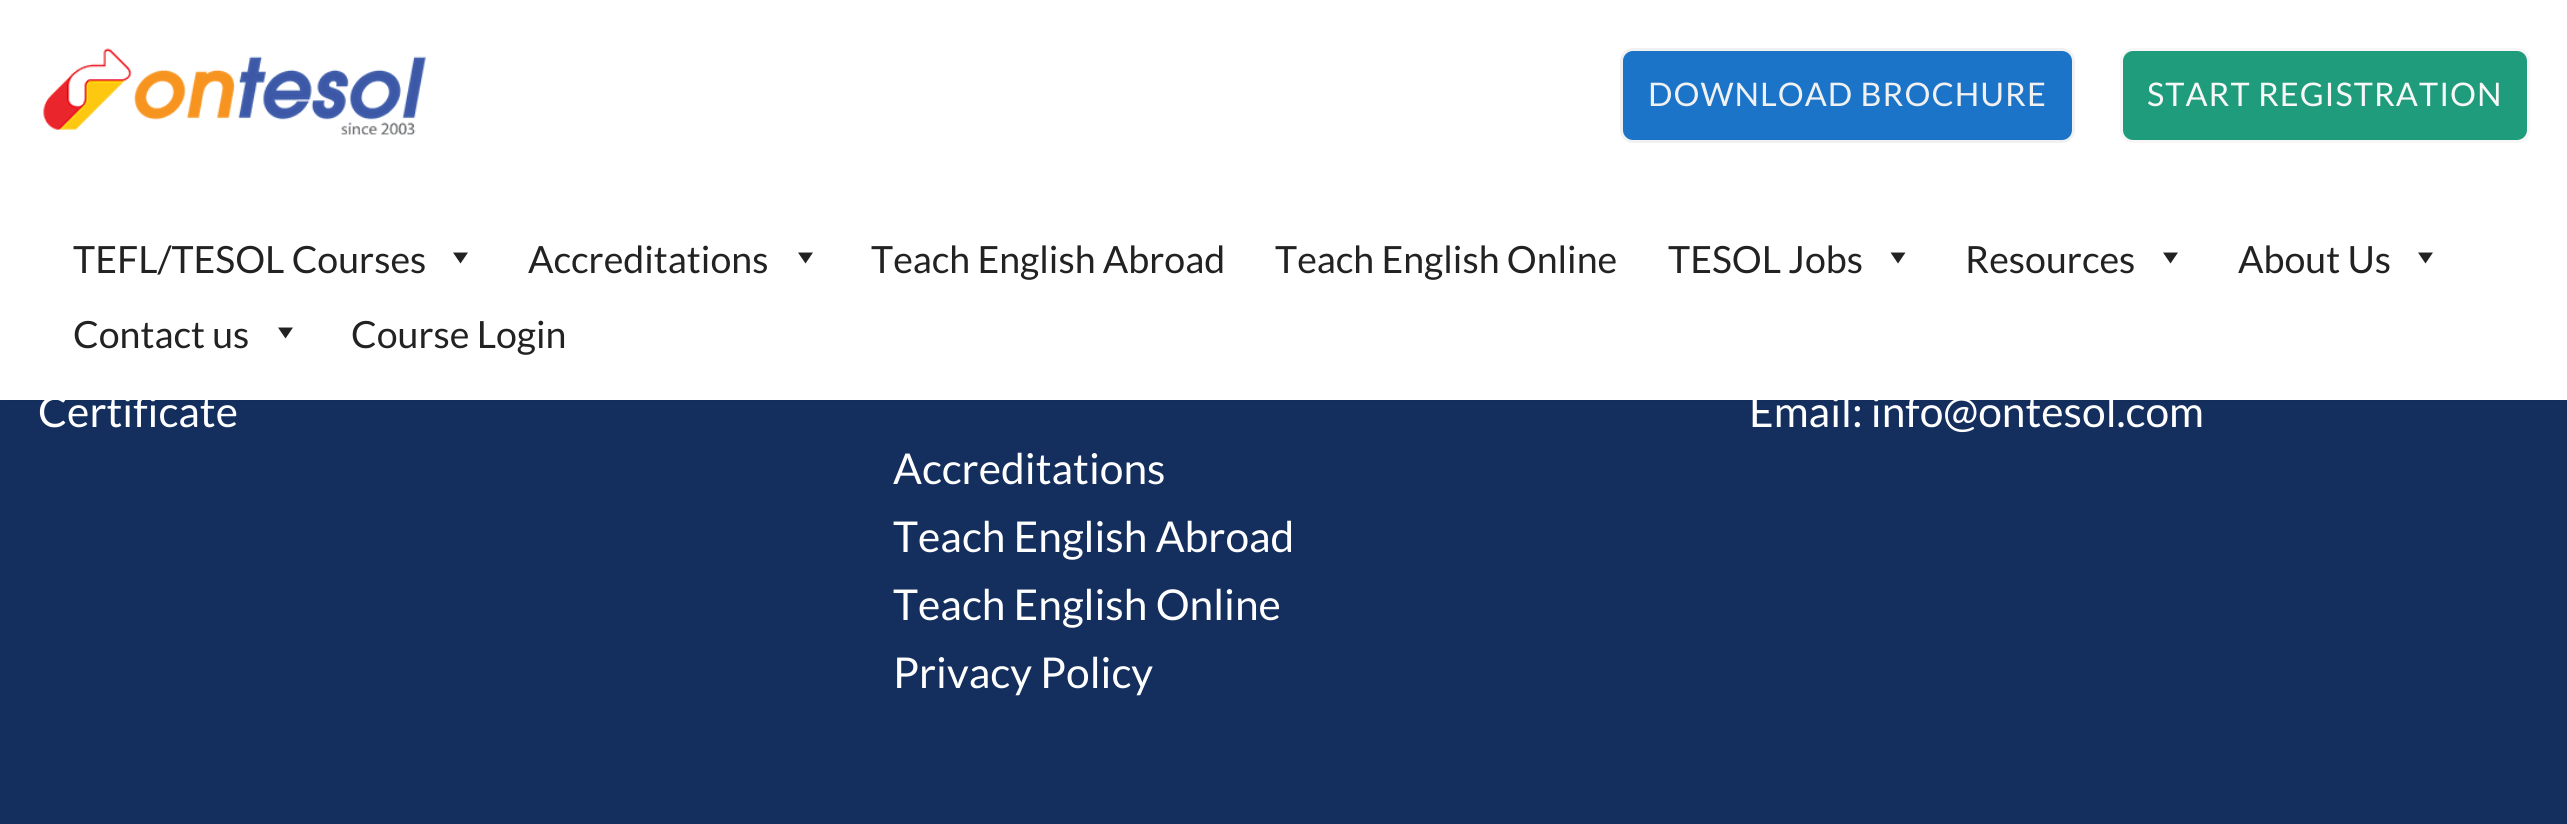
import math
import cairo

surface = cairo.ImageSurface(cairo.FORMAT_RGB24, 2567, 824)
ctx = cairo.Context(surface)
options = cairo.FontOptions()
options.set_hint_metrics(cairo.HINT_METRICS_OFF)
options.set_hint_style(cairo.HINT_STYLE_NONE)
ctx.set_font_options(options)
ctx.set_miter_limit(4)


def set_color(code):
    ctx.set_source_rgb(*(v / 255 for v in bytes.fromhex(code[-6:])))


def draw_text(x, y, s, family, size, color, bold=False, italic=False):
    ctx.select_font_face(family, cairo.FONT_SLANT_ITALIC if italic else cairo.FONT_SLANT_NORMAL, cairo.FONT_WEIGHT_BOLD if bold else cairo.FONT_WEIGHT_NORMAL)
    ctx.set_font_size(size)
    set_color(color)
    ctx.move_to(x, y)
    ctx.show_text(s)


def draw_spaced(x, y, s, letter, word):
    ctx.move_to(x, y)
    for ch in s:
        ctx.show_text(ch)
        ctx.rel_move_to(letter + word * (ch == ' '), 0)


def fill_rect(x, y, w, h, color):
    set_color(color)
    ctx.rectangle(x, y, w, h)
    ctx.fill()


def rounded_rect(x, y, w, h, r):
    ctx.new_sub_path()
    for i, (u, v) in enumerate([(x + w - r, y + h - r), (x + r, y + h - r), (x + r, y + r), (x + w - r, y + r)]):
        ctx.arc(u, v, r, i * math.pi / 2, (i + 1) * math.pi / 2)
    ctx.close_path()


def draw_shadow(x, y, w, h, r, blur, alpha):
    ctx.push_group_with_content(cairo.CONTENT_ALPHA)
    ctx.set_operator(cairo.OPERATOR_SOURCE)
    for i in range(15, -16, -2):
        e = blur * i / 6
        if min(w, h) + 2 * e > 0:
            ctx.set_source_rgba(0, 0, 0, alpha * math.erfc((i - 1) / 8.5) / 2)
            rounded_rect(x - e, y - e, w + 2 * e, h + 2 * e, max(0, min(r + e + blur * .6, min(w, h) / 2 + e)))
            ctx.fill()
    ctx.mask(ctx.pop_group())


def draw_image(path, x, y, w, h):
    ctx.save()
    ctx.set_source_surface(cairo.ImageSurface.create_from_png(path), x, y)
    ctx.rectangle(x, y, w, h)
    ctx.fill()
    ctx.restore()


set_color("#142f5e")
ctx.paint()
set_color("#000000")
draw_shadow(0, -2, 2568, 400, 0, 4, 0.1)
fill_rect(0, 0, 2567, 400, "#ffffff")
draw_image("assets/img1.png", 43, 48, 383, 87)
set_color("#1b74c8")
rounded_rect(1621.5, 49.5, 452, 92, 11.5)
ctx.fill_preserve()
set_color("#f1f1f1")
ctx.set_line_width(3)
ctx.stroke()
ctx.select_font_face("Lato")
ctx.set_font_size(32.5)
draw_spaced(1648, 106, "DOWNLOAD BROCHURE", 1, 0)
set_color("#1f9c7b")
rounded_rect(2121.5, 49.5, 407, 92, 11.5)
ctx.fill_preserve()
set_color("#f7f7f7")
ctx.stroke()
draw_spaced(2147, 106, "START REGISTRATION", 1, 0)
draw_text(73, 273, "TEFL/TESOL Courses", "Lato", 37.5, "#222222")
ctx.new_path()
ctx.move_to(468, 252.5)
ctx.line_to(460.5, 263.5)
ctx.line_to(453, 252.5)
ctx.close_path()
ctx.fill()
draw_text(528, 273, "Accreditations", "Lato", 37.5, "#222222")
ctx.new_path()
ctx.move_to(813, 252.5)
ctx.line_to(805.5, 263.5)
ctx.line_to(798, 252.5)
ctx.close_path()
ctx.fill()
draw_text(871, 273, "Teach English Abroad", "Lato", 37.5, "#222222")
draw_text(1275, 273, "Teach English Online", "Lato", 37.5, "#222222")
draw_text(1668, 273, "TESOL Jobs", "Lato", 37.5, "#222222")
ctx.new_path()
ctx.move_to(1905.5, 252.5)
ctx.line_to(1898, 263.5)
ctx.line_to(1890.5, 252.5)
ctx.close_path()
ctx.fill()
draw_text(1965, 273, "Resources", "Lato", 37.5, "#222222")
ctx.new_path()
ctx.move_to(2178, 252.5)
ctx.line_to(2170.5, 263.5)
ctx.line_to(2163, 252.5)
ctx.close_path()
ctx.fill()
draw_text(2238, 273, "About Us", "Lato", 37.5, "#222222")
ctx.new_path()
ctx.move_to(2433, 252.5)
ctx.line_to(2425.5, 263.5)
ctx.line_to(2418, 252.5)
ctx.close_path()
ctx.fill()
draw_text(73, 348, "Contact us", "Lato", 37.5, "#222222")
ctx.new_path()
ctx.move_to(293, 327.5)
ctx.line_to(285.5, 338.5)
ctx.line_to(278, 327.5)
ctx.close_path()
ctx.fill()
draw_text(351, 348, "Course Login", "Lato", 37.5, "#222222")
draw_text(38, 427, "Certificate", "Lato", 42.5, "#ffffff")
draw_text(1749, 427, "Email: info@ontesol.com", "Lato", 42.5, "#ffffff")
draw_text(893, 484, "Accreditations", "Lato", 42.5, "#ffffff")
draw_text(893, 552, "Teach English Abroad", "Lato", 42.5, "#ffffff")
draw_text(893, 620, "Teach English Online", "Lato", 42.5, "#ffffff")
draw_text(893, 688, "Privacy Policy", "Lato", 42.5, "#ffffff")
surface.write_to_png("output.png")
